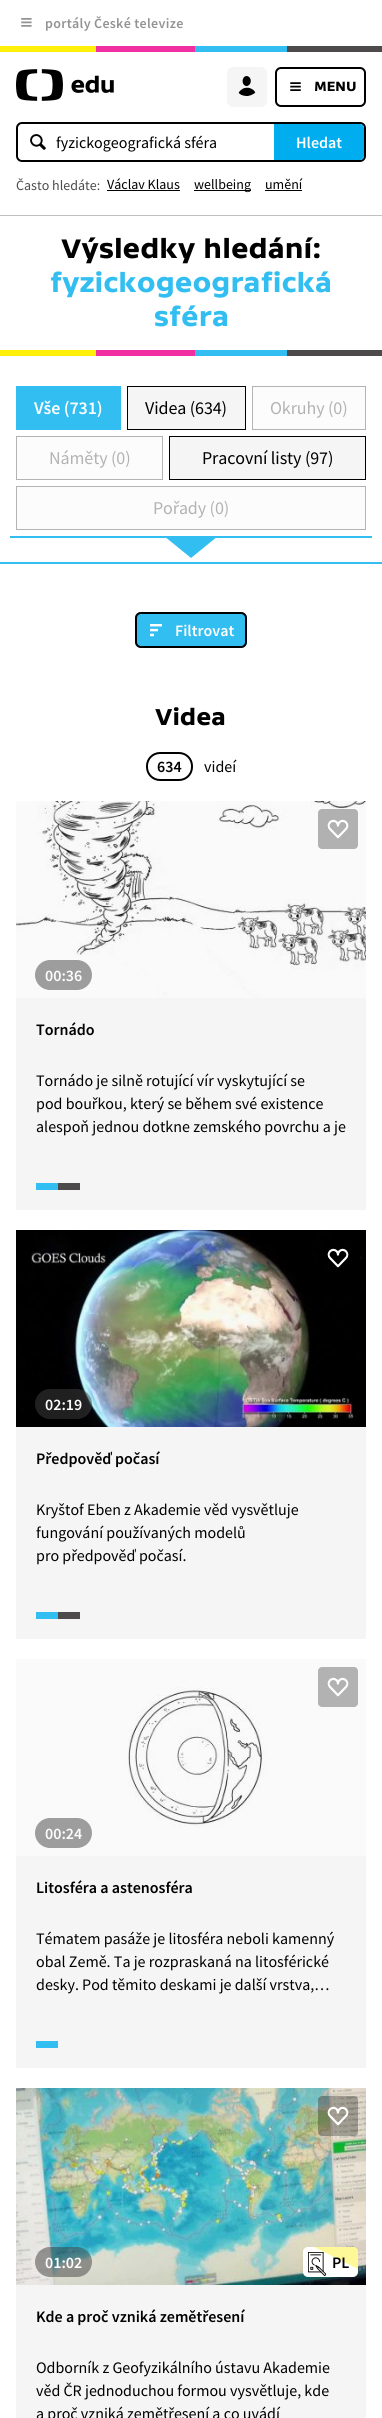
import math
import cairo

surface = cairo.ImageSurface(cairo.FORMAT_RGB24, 382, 2418)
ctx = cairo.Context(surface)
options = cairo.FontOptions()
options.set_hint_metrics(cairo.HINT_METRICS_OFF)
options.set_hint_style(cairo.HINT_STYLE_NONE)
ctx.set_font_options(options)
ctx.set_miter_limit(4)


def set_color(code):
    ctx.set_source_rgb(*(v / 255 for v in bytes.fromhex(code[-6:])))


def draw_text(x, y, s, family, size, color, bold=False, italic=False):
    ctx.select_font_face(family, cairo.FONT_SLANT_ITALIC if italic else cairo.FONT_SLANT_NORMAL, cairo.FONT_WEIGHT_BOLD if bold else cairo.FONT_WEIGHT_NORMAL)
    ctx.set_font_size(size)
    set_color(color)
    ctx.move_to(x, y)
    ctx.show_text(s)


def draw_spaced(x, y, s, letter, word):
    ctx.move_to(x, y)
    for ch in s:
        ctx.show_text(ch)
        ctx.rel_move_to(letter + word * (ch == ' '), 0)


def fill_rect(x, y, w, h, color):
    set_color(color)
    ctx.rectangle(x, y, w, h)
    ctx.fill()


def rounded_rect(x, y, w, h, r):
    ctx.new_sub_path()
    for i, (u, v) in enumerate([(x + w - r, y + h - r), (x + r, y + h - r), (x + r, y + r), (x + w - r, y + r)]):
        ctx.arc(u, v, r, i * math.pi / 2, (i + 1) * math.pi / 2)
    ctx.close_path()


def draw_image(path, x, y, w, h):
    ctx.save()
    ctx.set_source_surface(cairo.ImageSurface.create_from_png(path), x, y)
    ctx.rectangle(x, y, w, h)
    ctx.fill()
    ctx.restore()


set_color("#ffffff")
ctx.paint()
draw_image("assets/img1.png", 21, 18, 11, 9)
ctx.select_font_face("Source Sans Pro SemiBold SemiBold")
ctx.set_font_size(14)
set_color("#939393")
draw_spaced(45, 28, "portály České televize", 0.3, 0)
fill_rect(0, 46, 96, 6, "#fff00a")
fill_rect(96, 46, 99, 6, "#f030a1")
fill_rect(195, 46, 92, 6, "#33bef2")
fill_rect(287, 46, 95, 6, "#4d4a4b")
fill_rect(0, 215, 382, 1, "#c0c0c0")
draw_image("assets/img2.png", 16, 69, 98, 32)
set_color("#f5f5f5")
rounded_rect(227, 67, 40, 40, 6)
ctx.fill()
draw_image("assets/img3.png", 238, 76, 18, 20)
rounded_rect(276, 68, 89, 38, 5)
set_color("#000000")
ctx.stroke()
draw_image("assets/img4.png", 290, 82, 11, 9)
draw_text(314, 91, "MENU", "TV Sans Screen", 14, "#000000", bold=True)
rounded_rect(17, 123, 348, 38, 5)
ctx.stroke()
set_color("#ffffff")
ctx.new_path()
ctx.move_to(24, 124)
ctx.line_to(274, 124)
ctx.line_to(274, 160)
ctx.line_to(24, 160)
ctx.curve_to(20.5, 160, 18, 157.5, 18, 154)
ctx.line_to(18, 130)
ctx.curve_to(18, 126.5, 20.5, 124, 24, 124)
ctx.close_path()
ctx.fill()
draw_image("assets/img5.png", 30, 134, 16, 16)
draw_text(56, 148, "fyzickogeografická sféra", "Source Sans Pro", 16, "#000000")
set_color("#00aeef")
ctx.new_path()
ctx.move_to(274, 124)
ctx.line_to(360, 124)
ctx.curve_to(362, 124, 364, 126, 364, 128)
ctx.line_to(364, 156)
ctx.curve_to(364, 158, 362, 160, 360, 160)
ctx.line_to(274, 160)
ctx.close_path()
ctx.fill()
draw_text(296, 148, "Hledat", "Source Sans Pro SemiBold SemiBold", 16, "#fdfdfd")
draw_text(16, 190, "Často hledáte:", "Source Sans Pro", 14, "#4d4a4b")
draw_text(107, 189, "Václav Klaus", "Source Sans Pro", 14, "#000000")
fill_rect(107, 190, 73, 1, "#000000")
fill_rect(194, 190, 57, 1, "#000000")
draw_text(194, 189, "wellbeing", "Source Sans Pro", 14, "#000000")
draw_text(265, 189, "umění", "Source Sans Pro", 14, "#000000")
fill_rect(265, 190, 37, 1, "#000000")
draw_text(61, 258, "Výsledky hledání:", "TV Sans Screen", 28, "#000000", bold=True)
draw_text(50, 292, "fyzickogeografická", "TV Sans Screen", 28, "#33bef2", bold=True)
draw_text(154, 326, "sféra", "TV Sans Screen", 28, "#33bef2", bold=True)
fill_rect(0, 350, 96, 6, "#fff00a")
fill_rect(96, 350, 99, 6, "#f030a1")
fill_rect(195, 350, 92, 6, "#33bef2")
fill_rect(287, 350, 95, 6, "#4d4a4b")
fill_rect(0, 562, 382, 2, "#33bef2")
fill_rect(10, 536, 362, 2, "#33bef2")
fill_rect(16, 386, 105, 44, "#33bef2")
ctx.select_font_face("Source Sans Pro SemiBold SemiBold")
ctx.set_font_size(18)
set_color("#fdfdfd")
draw_spaced(34, 414, "Vše (731)", -0.1, 0)
set_color("#f5f5f5")
ctx.rectangle(127.5, 386.5, 118, 43)
ctx.fill_preserve()
set_color("#000000")
ctx.set_line_width(1)
ctx.stroke()
ctx.select_font_face("Source Sans Pro")
draw_spaced(145, 414, "Videa (634)", -0.1, 0)
set_color("#fcfcfc")
ctx.rectangle(252.5, 386.5, 113, 43)
ctx.fill_preserve()
set_color("#b3b3b3")
ctx.stroke()
draw_spaced(270, 414, "Okruhy (0)", -0.1, 0)
set_color("#fcfcfc")
ctx.rectangle(16.5, 436.5, 146, 43)
ctx.fill_preserve()
set_color("#b3b3b3")
ctx.stroke()
draw_spaced(49, 464, "Náměty (0)", -0.1, 0)
set_color("#f5f5f5")
ctx.rectangle(169.5, 436.5, 196, 43)
ctx.fill_preserve()
set_color("#000000")
ctx.stroke()
draw_spaced(202, 464, "Pracovní listy (97)", -0.1, 0)
set_color("#fcfcfc")
ctx.rectangle(16.5, 486.5, 349, 43)
ctx.fill_preserve()
set_color("#b3b3b3")
ctx.stroke()
draw_spaced(153, 514, "Pořady (0)", -0.1, 0)
set_color("#33bef2")
ctx.new_path()
ctx.move_to(164, 536)
ctx.line_to(218, 536)
ctx.line_to(191, 558)
ctx.close_path()
ctx.fill()
rounded_rect(135, 612, 112, 36, 6)
ctx.fill()
draw_image("assets/img6.png", 150, 624, 12, 13)
rounded_rect(136, 613, 110, 34, 5)
set_color("#000000")
ctx.set_line_width(2)
ctx.stroke()
draw_text(175, 636, "Filtrovat", "Source Sans Pro SemiBold SemiBold", 16, "#fdfdfd")
draw_text(155, 725, "Videa", "TV Sans Screen", 24, "#000000", bold=True)
rounded_rect(147, 753, 45, 27, 13)
ctx.stroke()
draw_text(157, 772, "634", "Source Sans Pro SemiBold SemiBold", 16, "#000000")
draw_text(204, 772, "videí", "Source Sans Pro", 16, "#000000")
fill_rect(16, 998, 350, 212, "#f5f5f5")
draw_image("assets/img8.png", 16, 801, 350, 197)
ctx.set_source_rgba(0, 0, 0, 0.29)
rounded_rect(318, 809, 40, 40, 4)
ctx.fill()
draw_image("assets/img7.png", 327, 819, 22, 20)
set_color("#9d9d9d")
rounded_rect(35, 960, 57, 30, 15)
ctx.fill()
draw_text(45, 981, "00:36", "Source Sans Pro SemiBold SemiBold", 16, "#fdfdfd")
draw_text(36, 1035, "Tornádo", "Source Sans Pro SemiBold SemiBold", 16, "#000000")
draw_text(36, 1086, "Tornádo je silně rotující vír vyskytující se", "Source Sans Pro", 16, "#000000")
draw_text(36, 1109, "pod bouřkou, který se během své existence", "Source Sans Pro", 16, "#000000")
draw_text(36, 1132, "alespoň jednou dotkne zemského povrchu a je", "Source Sans Pro", 16, "#000000")
fill_rect(36, 1183, 22, 7, "#33bef2")
fill_rect(58, 1183, 22, 7, "#4d4a4b")
fill_rect(16, 1427, 350, 212, "#f5f5f5")
draw_image("assets/img10.png", 16, 1230, 350, 197)
draw_image("assets/img9.png", 327, 1248, 22, 20)
ctx.set_source_rgba(0.251, 0.251, 0.251, 0.5)
rounded_rect(35, 1389, 57, 30, 15)
ctx.fill()
draw_text(45, 1410, "02:19", "Source Sans Pro SemiBold SemiBold", 16, "#fdfdfd")
draw_text(36, 1464, "Předpověď počasí", "Source Sans Pro SemiBold SemiBold", 16, "#000000")
draw_text(36, 1515, "Kryštof Eben z Akademie věd vysvětluje", "Source Sans Pro", 16, "#000000")
draw_text(36, 1538, "fungování používaných modelů", "Source Sans Pro", 16, "#000000")
draw_text(36, 1561, "pro předpověď počasí.", "Source Sans Pro", 16, "#000000")
fill_rect(36, 1612, 22, 7, "#33bef2")
fill_rect(58, 1612, 22, 7, "#4d4a4b")
fill_rect(16, 1856, 350, 212, "#f5f5f5")
draw_image("assets/img12.png", 16, 1659, 350, 197)
set_color("#b2b2b2")
rounded_rect(318, 1667, 40, 40, 4)
ctx.fill()
draw_image("assets/img11.png", 327, 1677, 22, 20)
set_color("#9d9d9d")
rounded_rect(35, 1818, 57, 30, 15)
ctx.fill()
draw_text(45, 1839, "00:24", "Source Sans Pro SemiBold SemiBold", 16, "#fdfdfd")
draw_text(36, 1893, "Litosféra a astenosféra", "Source Sans Pro SemiBold SemiBold", 16, "#000000")
draw_text(36, 1944, "Tématem pasáže je litosféra neboli kamenný", "Source Sans Pro", 16, "#000000")
draw_text(36, 1967, "obal Země. Ta je rozpraskaná na litosférické", "Source Sans Pro", 16, "#000000")
draw_text(36, 1990, "desky. Pod těmito deskami je další vrstva,…", "Source Sans Pro", 16, "#000000")
fill_rect(36, 2041, 22, 7, "#33bef2")
fill_rect(16, 2285, 350, 133, "#f5f5f5")
draw_image("assets/img14.png", 16, 2088, 350, 197)
ctx.set_source_rgba(0, 0, 0, 0.29)
rounded_rect(318, 2096, 40, 40, 4)
ctx.fill()
draw_image("assets/img13.png", 327, 2106, 22, 20)
ctx.set_source_rgba(0.251, 0.251, 0.251, 0.5)
rounded_rect(35, 2247, 57, 30, 15)
ctx.fill()
draw_text(45, 2268, "01:02", "Source Sans Pro SemiBold SemiBold", 16, "#fdfdfd")
draw_text(36, 2322, "Kde a proč vzniká zemětřesení", "Source Sans Pro SemiBold SemiBold", 16, "#000000")
draw_text(36, 2373, "Odborník z Geofyzikálního ústavu Akademie", "Source Sans Pro", 16, "#000000")
draw_text(36, 2396, "věd ČR jednoduchou formou vysvětluje, kde", "Source Sans Pro", 16, "#000000")
draw_text(36, 2419, "a proč vzniká zemětřesení a co uvádí", "Source Sans Pro", 16, "#000000")
set_color("#ffffff")
rounded_rect(303, 2247, 55, 30, 5)
ctx.fill()
ctx.set_source_rgba(1, 0.953, 0.2, 0.5)
ctx.new_path()
ctx.move_to(358, 2269)
ctx.line_to(358, 2252)
ctx.curve_to(358, 2249, 356, 2247, 353, 2247)
ctx.line_to(314, 2247)
ctx.close_path()
ctx.fill()
draw_image("assets/img15.png", 308, 2252, 19, 24)
draw_text(332, 2268, "PL", "Source Sans Pro SemiBold SemiBold", 16, "#000000")
surface.write_to_png("output.png")
